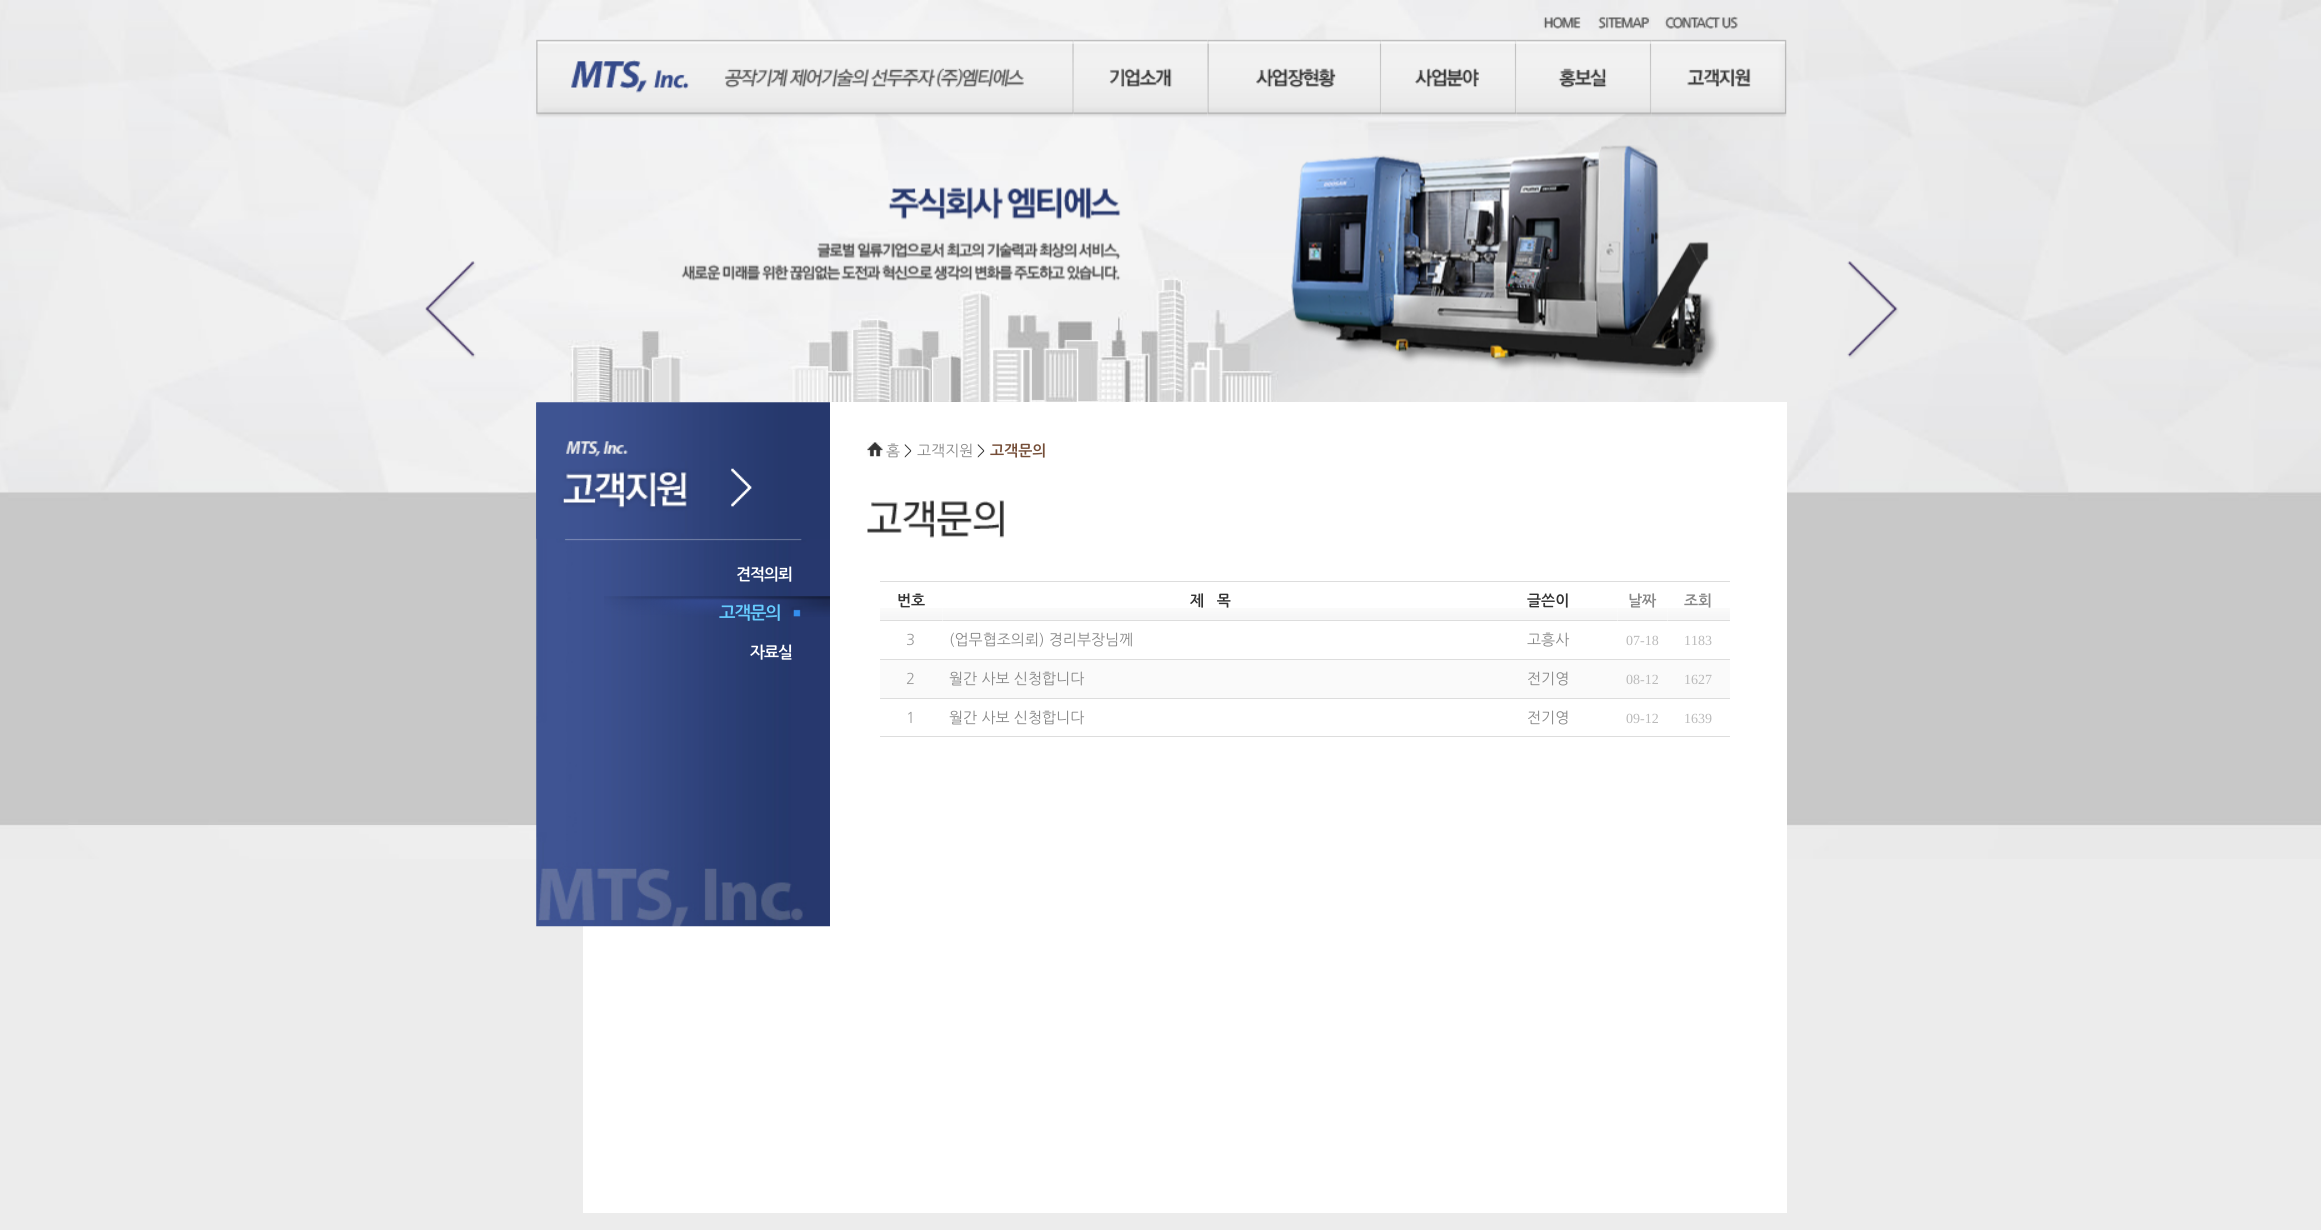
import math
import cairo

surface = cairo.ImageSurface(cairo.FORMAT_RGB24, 2321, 1230)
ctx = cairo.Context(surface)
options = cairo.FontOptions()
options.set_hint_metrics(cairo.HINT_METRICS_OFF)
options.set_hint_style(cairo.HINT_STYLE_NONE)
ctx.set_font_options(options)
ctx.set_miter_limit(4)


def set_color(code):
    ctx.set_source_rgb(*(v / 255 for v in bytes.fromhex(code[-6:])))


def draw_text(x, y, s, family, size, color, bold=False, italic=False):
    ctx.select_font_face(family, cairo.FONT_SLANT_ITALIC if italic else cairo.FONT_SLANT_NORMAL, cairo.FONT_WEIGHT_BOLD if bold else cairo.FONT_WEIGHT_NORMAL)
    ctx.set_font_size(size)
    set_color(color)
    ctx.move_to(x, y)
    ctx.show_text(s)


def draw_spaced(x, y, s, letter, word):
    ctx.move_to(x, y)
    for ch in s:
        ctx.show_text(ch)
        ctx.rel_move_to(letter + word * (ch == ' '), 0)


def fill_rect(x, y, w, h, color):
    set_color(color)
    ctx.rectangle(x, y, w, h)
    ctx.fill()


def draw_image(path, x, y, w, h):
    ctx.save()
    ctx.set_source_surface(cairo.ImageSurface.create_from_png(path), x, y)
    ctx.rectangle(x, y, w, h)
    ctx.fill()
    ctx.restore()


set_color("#ececec")
ctx.paint()
draw_image("assets/img1.png", 0, 0, 2321, 859)
draw_image("assets/img2.png", 1543, 16, 38, 13)
draw_image("assets/img3.png", 1598, 16, 53, 13)
draw_image("assets/img4.png", 1664, 16, 74, 13)
draw_image("assets/img5.png", 536, 39, 538, 79)
draw_image("assets/img6.png", 1073, 39, 135, 79)
draw_image("assets/img7.png", 1207, 39, 175, 79)
draw_image("assets/img8.png", 1381, 39, 136, 79)
draw_image("assets/img9.png", 1516, 39, 136, 78)
draw_image("assets/img10.png", 1651, 39, 136, 78)
draw_image("assets/img11.png", 681, 145, 1038, 233)
draw_image("assets/img12.png", 425, 261, 51, 98)
draw_image("assets/img13.png", 1847, 261, 52, 98)
fill_rect(583, 402, 1204, 811, "#ffffff")
draw_image("assets/img14.png", 536, 402, 294, 525)
draw_image("assets/img15.png", 536, 402, 294, 137)
ctx.select_font_face("NanumGothic", cairo.FONT_SLANT_NORMAL, cairo.FONT_WEIGHT_BOLD)
ctx.set_font_size(16)
draw_spaced(736, 580, "견적의뢰", -1, 0)
draw_image("assets/img16.png", 604, 596, 226, 21)
ctx.set_font_size(17.5)
set_color("#66ccff")
draw_spaced(719, 619, "고객문의", -1, 0)
ctx.set_font_size(16)
set_color("#ffffff")
draw_spaced(750, 658, "자료실", -1, 0)
draw_image("assets/img17.png", 867, 442, 16, 15)
draw_text(886, 456, "홈", "NanumGothic", 15, "#888888")
draw_text(904, 456, ">", "NanumGothic", 15, "#333333")
draw_text(917, 456, "고객지원", "NanumGothic", 15, "#888888")
draw_text(977, 456, ">", "NanumGothic", 15, "#333333")
draw_text(990, 456, "고객문의", "NanumGothic", 15, "#754e38", bold=True)
draw_image("assets/img18.png", 867, 500, 137, 38)
draw_image("assets/img19.png", 880, 608, 63, 12)
fill_rect(880, 581, 850, 1, "#dddddd")
fill_rect(880, 620, 63, 1, "#dddddd")
draw_text(897, 606, "번호", "NanumGothic", 15, "#333333", bold=True)
draw_image("assets/img20.png", 942, 608, 538, 13)
fill_rect(943, 620, 675, 1, "#dddddd")
draw_text(1190, 606, "제   목", "NanumGothic", 15, "#333333", bold=True)
draw_image("assets/img21.png", 1480, 608, 138, 12)
draw_text(1527, 606, "글쓴이", "NanumGothic", 15, "#333333", bold=True)
draw_image("assets/img22.png", 1617, 608, 51, 13)
fill_rect(1618, 620, 50, 1, "#dddddd")
draw_text(1628, 606, "날짜", "NanumGothic", 15, "#888888", bold=True)
draw_image("assets/img23.png", 1667, 608, 63, 13)
fill_rect(1668, 620, 62, 1, "#dddddd")
draw_text(1684, 606, "조회", "NanumGothic", 15, "#888888", bold=True)
fill_rect(880, 659, 63, 1, "#dddddd")
draw_text(906, 645, "3", "NanumGothic", 15, "#999999")
draw_text(949, 645, "(업무협조의뢰) 경리부장님께", "NanumGothic", 15, "#888888")
fill_rect(943, 659, 787, 1, "#dddddd")
draw_text(1527, 645, "고흥사", "NanumGothic", 15, "#888888")
draw_text(1626, 645, "07-18", "Liberation Serif", 14, "#bababa")
draw_text(1684, 645, "1183", "Liberation Serif", 14, "#bababa")
fill_rect(880, 660, 850, 38, "#fafafa")
fill_rect(880, 698, 63, 1, "#dddddd")
draw_text(906, 684, "2", "NanumGothic", 15, "#999999")
draw_text(949, 684, "월간 사보 신청합니다", "NanumGothic", 15, "#888888")
fill_rect(943, 698, 787, 1, "#dddddd")
draw_text(1527, 684, "전기영", "NanumGothic", 15, "#888888")
draw_text(1626, 684, "08-12", "Liberation Serif", 14, "#bababa")
draw_text(1684, 684, "1627", "Liberation Serif", 14, "#bababa")
fill_rect(880, 736, 63, 1, "#dddddd")
draw_text(906, 723, "1", "NanumGothic", 15, "#999999")
draw_text(949, 723, "월간 사보 신청합니다", "NanumGothic", 15, "#888888")
fill_rect(943, 736, 787, 1, "#dddddd")
draw_text(1527, 723, "전기영", "NanumGothic", 15, "#888888")
draw_text(1626, 723, "09-12", "Liberation Serif", 14, "#bababa")
draw_text(1684, 723, "1639", "Liberation Serif", 14, "#bababa")
surface.write_to_png("output.png")
